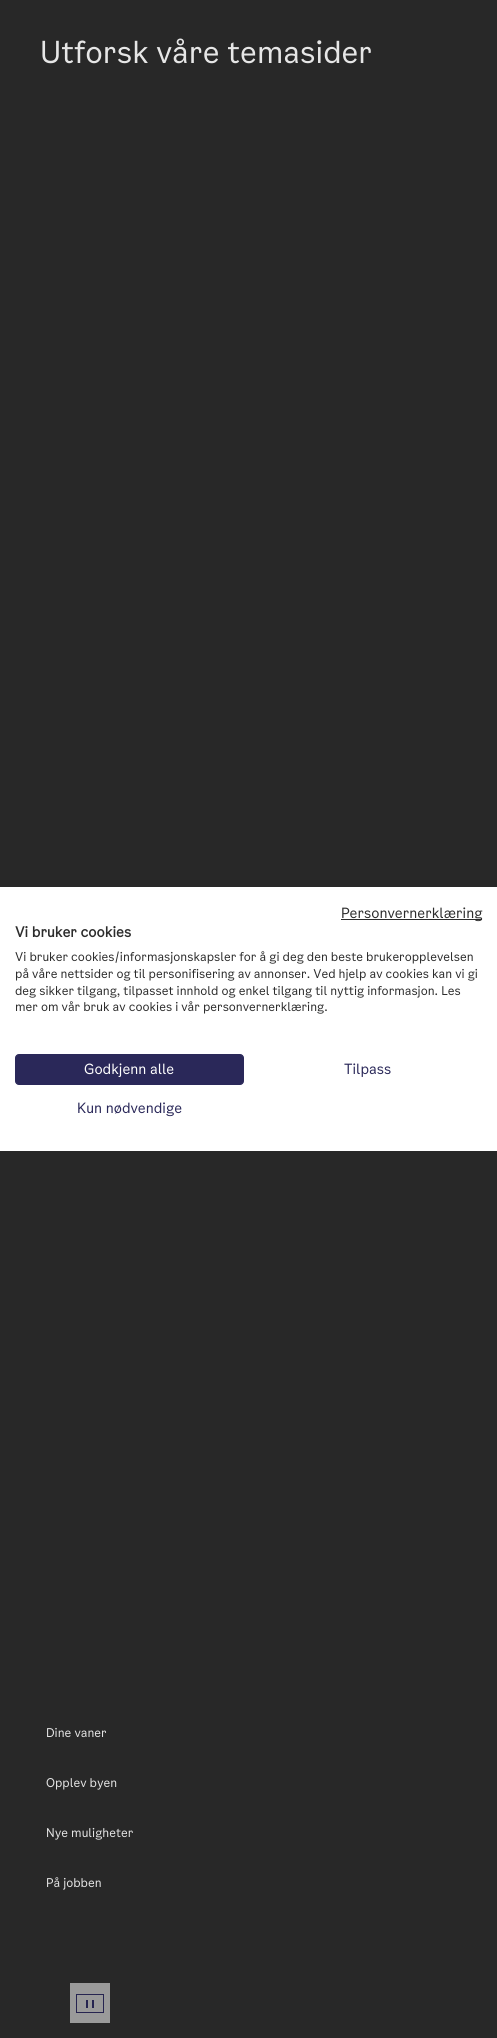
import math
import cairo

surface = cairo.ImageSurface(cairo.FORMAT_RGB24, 497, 2038)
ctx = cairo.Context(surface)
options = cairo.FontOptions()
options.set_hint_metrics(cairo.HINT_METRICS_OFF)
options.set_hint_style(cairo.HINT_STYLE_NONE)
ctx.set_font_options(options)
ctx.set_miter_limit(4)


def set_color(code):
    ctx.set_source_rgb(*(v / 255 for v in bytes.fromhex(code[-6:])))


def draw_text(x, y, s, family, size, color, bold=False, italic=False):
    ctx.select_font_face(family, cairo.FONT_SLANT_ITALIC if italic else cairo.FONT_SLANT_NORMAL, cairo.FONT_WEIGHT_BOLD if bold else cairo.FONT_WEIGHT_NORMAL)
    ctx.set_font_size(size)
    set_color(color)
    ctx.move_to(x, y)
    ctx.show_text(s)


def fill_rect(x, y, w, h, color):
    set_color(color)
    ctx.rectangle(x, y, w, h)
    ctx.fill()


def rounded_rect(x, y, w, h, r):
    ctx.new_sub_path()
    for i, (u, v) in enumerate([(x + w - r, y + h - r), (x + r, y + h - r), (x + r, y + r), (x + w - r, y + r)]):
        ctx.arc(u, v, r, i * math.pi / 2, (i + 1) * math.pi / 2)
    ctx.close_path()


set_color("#282828")
ctx.paint()
draw_text(40, 63, "Utforsk våre temasider", "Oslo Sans", 30, "#e6e6e6")
draw_text(46, 1737, "Dine vaner", "Oslo Sans", 12, "#e6e6e6")
draw_text(46, 1787, "Opplev byen", "Oslo Sans", 12, "#e6e6e6")
draw_text(46, 1837, "Nye muligheter", "Oslo Sans", 12, "#e6e6e6")
draw_text(46, 1887, "På jobben", "Oslo Sans", 12, "#e6e6e6")
fill_rect(70, 1983, 40, 40, "#9a9a9a")
ctx.rectangle(76.5, 1994.5, 27, 18)
set_color("#262450")
ctx.set_line_width(1)
ctx.stroke()
fill_rect(86, 2000, 2, 8, "#262450")
fill_rect(92, 2000, 2, 8, "#262450")
fill_rect(0, 887, 497, 264, "#ffffff")
fill_rect(341, 919, 141, 1, "#2c2c2c")
draw_text(341, 918, "Personvernerklæring", "Oslo Sans", 14, "#2c2c2c")
draw_text(15, 937, "Vi bruker cookies", "Oslo Sans", 14, "#2c2c2c", bold=True)
draw_text(15, 961, "Vi bruker cookies/informasjonskapsler for å gi deg den beste brukeropplevelsen", "Oslo Sans", 12, "#2c2c2c")
draw_text(15, 978, "på våre nettsider og til personifisering av annonser. Ved hjelp av cookies kan vi gi", "Oslo Sans", 12, "#2c2c2c")
draw_text(15, 995, "deg sikker tilgang, tilpasset innhold og enkel tilgang til nyttig informasjon. Les", "Oslo Sans", 12, "#2c2c2c")
draw_text(15, 1011, "mer om vår bruk av cookies i vår personvernerklæring.", "Oslo Sans", 12, "#2c2c2c")
set_color("#2a2859")
rounded_rect(15.5, 1054.5, 228, 30, 3.5)
ctx.fill_preserve()
ctx.stroke()
draw_text(84, 1074, "Godkjenn alle", "Oslo Sans", 14, "#ffffff")
draw_text(344, 1074, "Tilpass", "Oslo Sans", 14, "#2a2859")
draw_text(77, 1113, "Kun nødvendige", "Oslo Sans", 14, "#2a2859")
surface.write_to_png("output.png")
